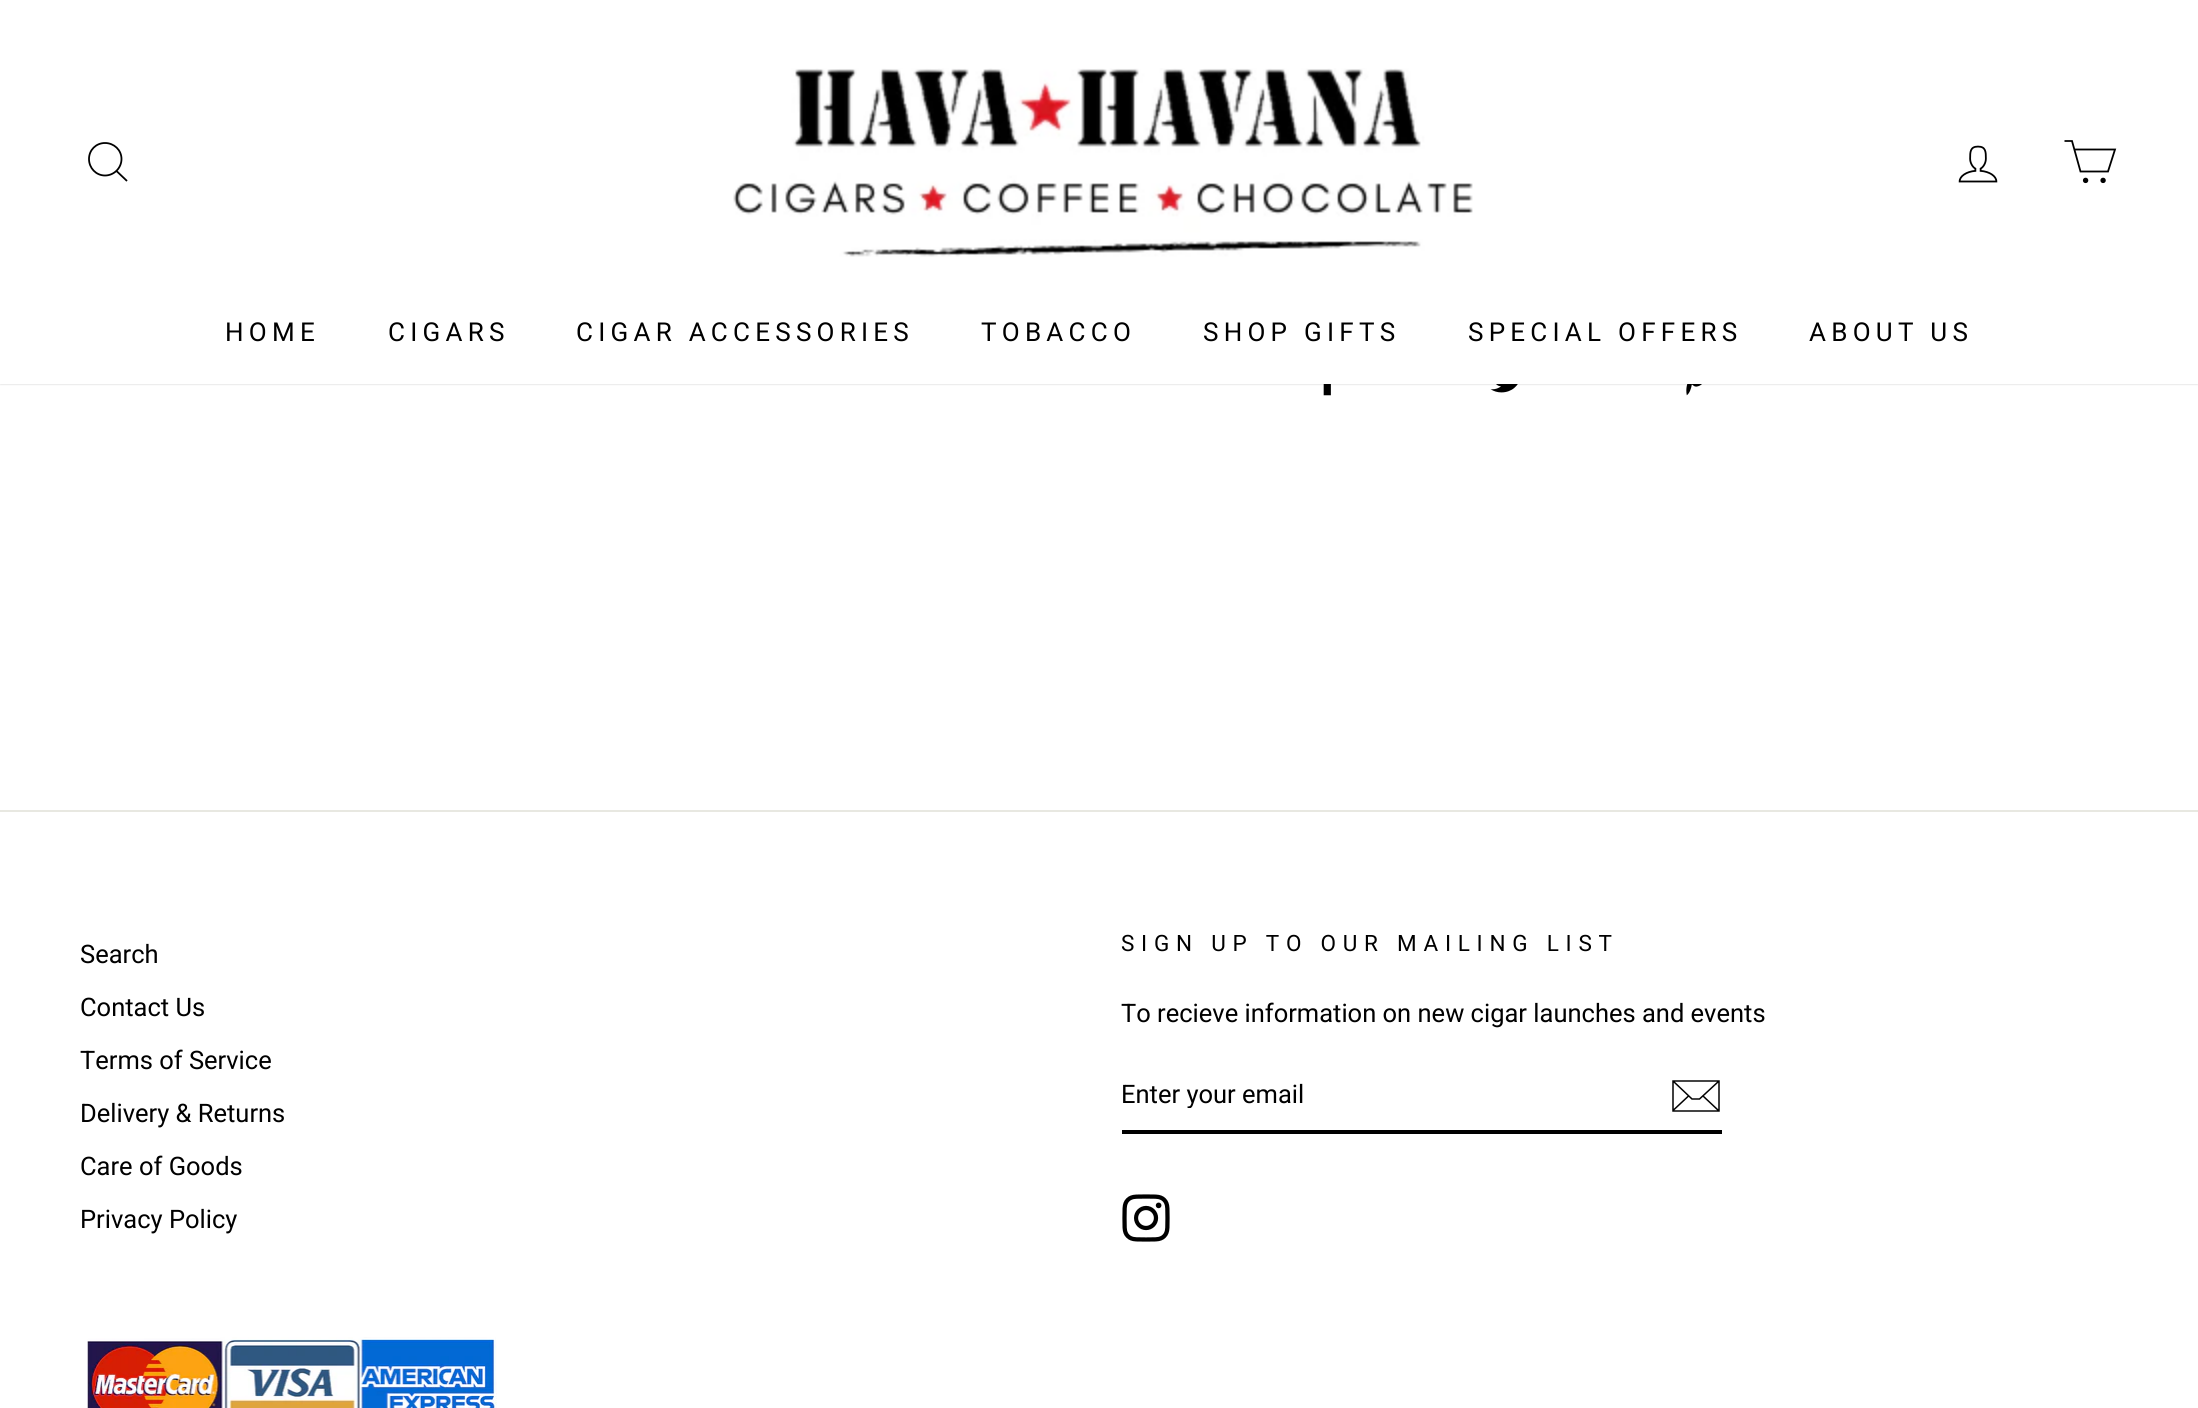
import math
import cairo

surface = cairo.ImageSurface(cairo.FORMAT_RGB24, 2198, 1408)
ctx = cairo.Context(surface)
options = cairo.FontOptions()
options.set_hint_metrics(cairo.HINT_METRICS_OFF)
options.set_hint_style(cairo.HINT_STYLE_NONE)
ctx.set_font_options(options)
ctx.set_miter_limit(4)


def set_color(code):
    ctx.set_source_rgb(*(v / 255 for v in bytes.fromhex(code[-6:])))


def draw_text(x, y, s, family, size, color, bold=False, italic=False):
    ctx.select_font_face(family, cairo.FONT_SLANT_ITALIC if italic else cairo.FONT_SLANT_NORMAL, cairo.FONT_WEIGHT_BOLD if bold else cairo.FONT_WEIGHT_NORMAL)
    ctx.set_font_size(size)
    set_color(color)
    ctx.move_to(x, y)
    ctx.show_text(s)


def draw_spaced(x, y, s, letter, word):
    ctx.move_to(x, y)
    for ch in s:
        ctx.show_text(ch)
        ctx.rel_move_to(letter + word * (ch == ' '), 0)


def fill_rect(x, y, w, h, color):
    set_color(color)
    ctx.rectangle(x, y, w, h)
    ctx.fill()


def rounded_rect(x, y, w, h, r):
    ctx.new_sub_path()
    for i, (u, v) in enumerate([(x + w - r, y + h - r), (x + r, y + h - r), (x + r, y + r), (x + w - r, y + r)]):
        ctx.arc(u, v, r, i * math.pi / 2, (i + 1) * math.pi / 2)
    ctx.close_path()


def draw_shadow(x, y, w, h, r, blur, alpha):
    ctx.push_group_with_content(cairo.CONTENT_ALPHA)
    ctx.set_operator(cairo.OPERATOR_SOURCE)
    for i in range(15, -16, -2):
        e = blur * i / 6
        if min(w, h) + 2 * e > 0:
            ctx.set_source_rgba(0, 0, 0, alpha * math.erfc((i - 1) / 8.5) / 2)
            rounded_rect(x - e, y - e, w + 2 * e, h + 2 * e, max(0, min(r + e + blur * .6, min(w, h) / 2 + e)))
            ctx.fill()
    ctx.mask(ctx.pop_group())


def draw_image(path, x, y, w, h):
    ctx.save()
    ctx.set_source_surface(cairo.ImageSurface.create_from_png(path), x, y)
    ctx.rectangle(x, y, w, h)
    ctx.fill()
    ctx.restore()


set_color("#ffffff")
ctx.paint()
draw_image("assets/img3.png", 1323, 384, 8, 12)
draw_image("assets/img4.png", 1490, 384, 28, 9)
draw_image("assets/img5.png", 1686, 384, 16, 12)
set_color("#000000")
draw_shadow(0, 0, 2198, 384, 0, 1, 0.2)
fill_rect(0, 0, 2198, 384, "#ffffff")
ctx.new_path()
ctx.move_to(121.5, 159)
ctx.curve_to(121.5, 168, 114, 175.5, 105, 175.5)
ctx.curve_to(96, 175.5, 89, 168, 89, 159)
ctx.curve_to(89, 150, 96, 143, 105, 143)
ctx.curve_to(114, 143, 121.5, 150, 121.5, 159)
ctx.close_path()
ctx.move_to(127, 181)
ctx.line_to(116.5, 171)
set_color("#000000")
ctx.set_line_width(1.8)
ctx.stroke()
draw_image("assets/img1.png", 733, 68, 740, 189)
draw_image("assets/img2.png", 1958, 145, 40, 38)
ctx.new_path()
ctx.move_to(2074, 149.5)
ctx.line_to(2115, 149.5)
ctx.line_to(2108, 171.5)
ctx.line_to(2080.5, 171.5)
ctx.line_to(2072, 141)
ctx.line_to(2064.5, 141)
ctx.stroke()
ctx.arc(2085.6, 180.4, 1.8, 0, 2 * math.pi)
ctx.fill_preserve()
ctx.stroke()
ctx.arc(2103.1, 180.4, 1.8, 0, 2 * math.pi)
ctx.fill_preserve()
ctx.stroke()
ctx.select_font_face("Roboto")
ctx.set_font_size(26)
draw_spaced(225, 341, "HOME", 5.25, 0)
draw_spaced(388, 341, "CIGARS", 5.25, 0)
draw_spaced(576, 341, "CIGAR ACCESSORIES", 5.25, 0)
draw_spaced(981, 341, "TOBACCO", 5.25, 0)
draw_spaced(1203, 341, "SHOP GIFTS", 5.25, 0)
draw_spaced(1468, 341, "SPECIAL OFFERS", 5.25, 0)
draw_spaced(1809, 341, "ABOUT US", 5.25, 0)
fill_rect(0, 810, 2198, 2, "#e8e8e1")
draw_text(80, 963, "Search", "Roboto", 25.5, "#000000")
draw_text(80, 1016, "Contact Us", "Roboto", 25.5, "#000000")
draw_text(80, 1069, "Terms of Service", "Roboto", 25.5, "#000000")
draw_text(80, 1122, "Delivery & Returns", "Roboto", 25.5, "#000000")
draw_text(80, 1175, "Care of Goods", "Roboto", 25.5, "#000000")
draw_text(80, 1228, "Privacy Policy", "Roboto", 25.5, "#000000")
ctx.set_font_size(22.5)
draw_spaced(1121, 951, "SIGN UP TO OUR MAILING LIST", 6.75, 0)
draw_text(1121, 1022, "To recieve information on new cigar launches and events", "Roboto", 25.5, "#000000")
fill_rect(1122, 1130, 600, 4, "#000000")
ctx.save()
ctx.rectangle(1122, 1078, 510, 30)
ctx.clip()
draw_text(1121, 1103, "Enter your email", "Roboto", 25.5, "#000000")
ctx.restore()
ctx.new_path()
ctx.move_to(1719, 1111)
ctx.line_to(1673, 1111)
ctx.line_to(1673, 1081)
ctx.line_to(1719, 1081)
ctx.close_path()
ctx.move_to(1673, 1081)
ctx.line_to(1692, 1099)
ctx.line_to(1699.5, 1099)
ctx.line_to(1719, 1081)
ctx.move_to(1688.5, 1096)
ctx.line_to(1673, 1110.5)
ctx.move_to(1719, 1111)
ctx.line_to(1703, 1096)
ctx.set_line_width(1.5)
ctx.stroke()
draw_image("assets/img6.png", 1122, 1194, 48, 48)
draw_image("assets/img7.png", 87, 1337, 410, 71)
surface.write_to_png("output.png")
